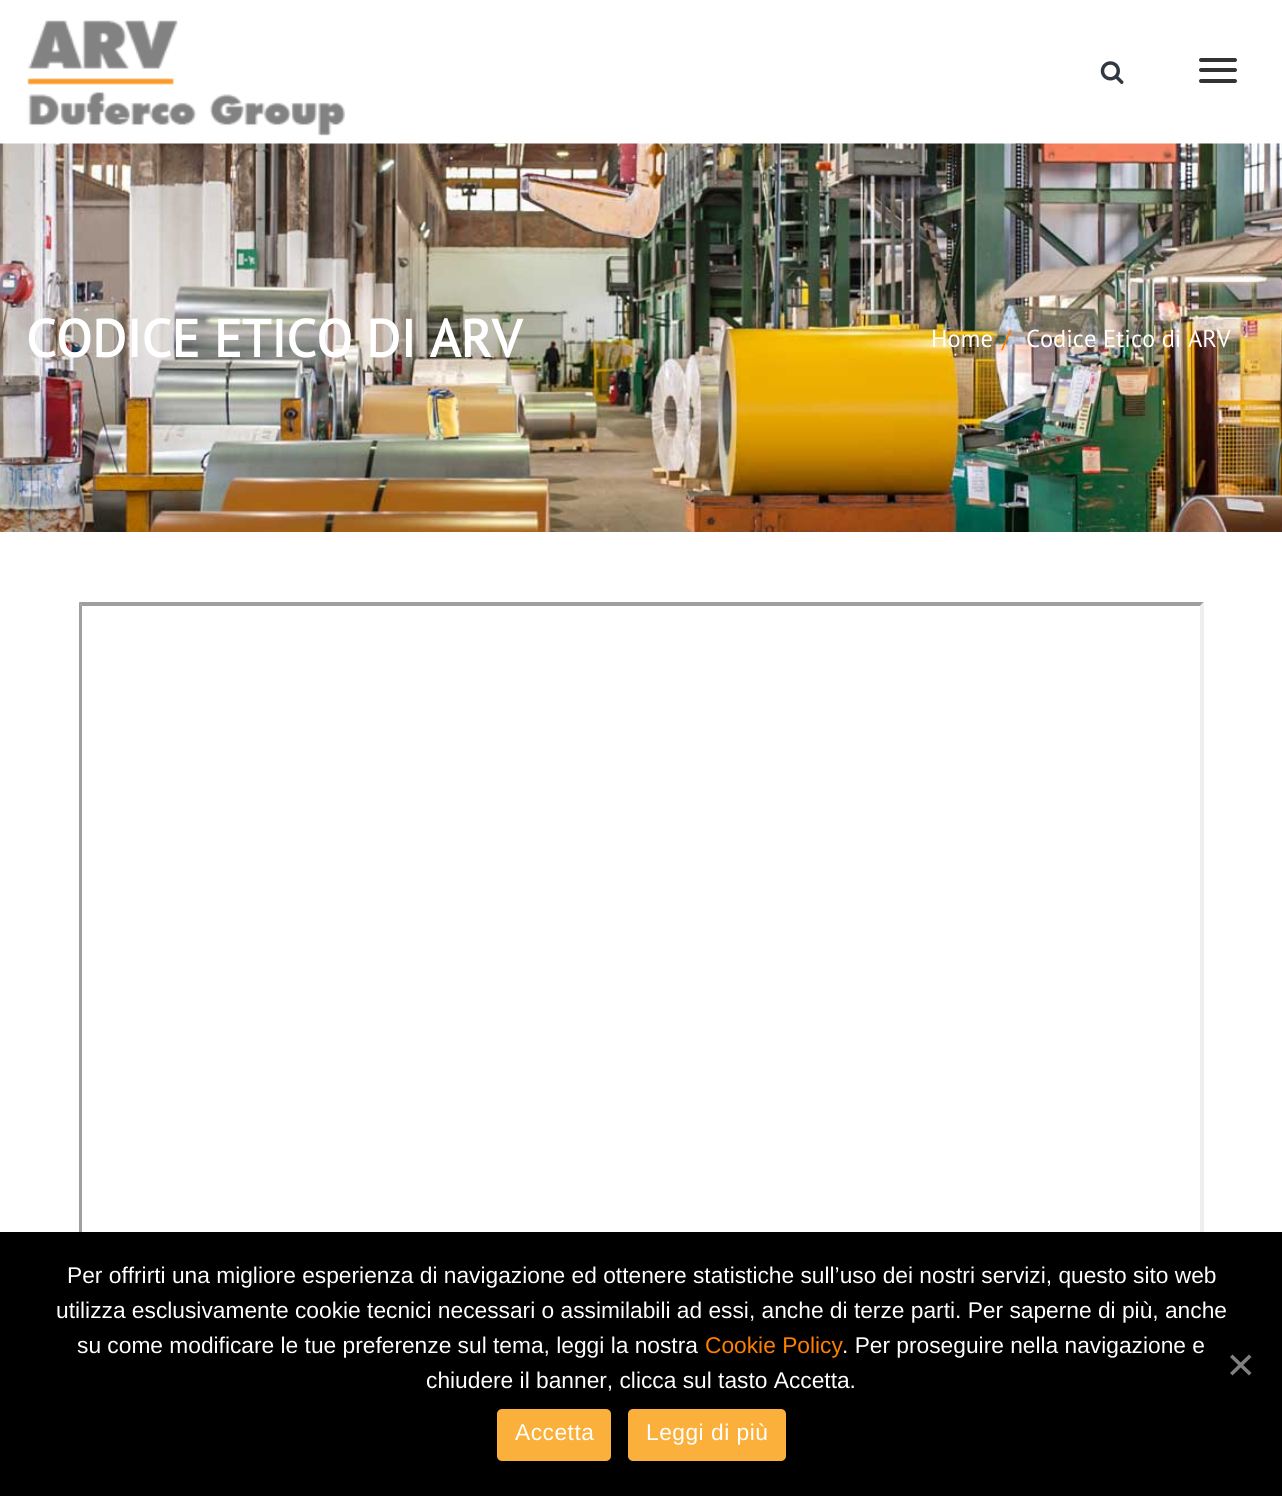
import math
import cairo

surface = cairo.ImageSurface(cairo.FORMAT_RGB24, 1282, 1496)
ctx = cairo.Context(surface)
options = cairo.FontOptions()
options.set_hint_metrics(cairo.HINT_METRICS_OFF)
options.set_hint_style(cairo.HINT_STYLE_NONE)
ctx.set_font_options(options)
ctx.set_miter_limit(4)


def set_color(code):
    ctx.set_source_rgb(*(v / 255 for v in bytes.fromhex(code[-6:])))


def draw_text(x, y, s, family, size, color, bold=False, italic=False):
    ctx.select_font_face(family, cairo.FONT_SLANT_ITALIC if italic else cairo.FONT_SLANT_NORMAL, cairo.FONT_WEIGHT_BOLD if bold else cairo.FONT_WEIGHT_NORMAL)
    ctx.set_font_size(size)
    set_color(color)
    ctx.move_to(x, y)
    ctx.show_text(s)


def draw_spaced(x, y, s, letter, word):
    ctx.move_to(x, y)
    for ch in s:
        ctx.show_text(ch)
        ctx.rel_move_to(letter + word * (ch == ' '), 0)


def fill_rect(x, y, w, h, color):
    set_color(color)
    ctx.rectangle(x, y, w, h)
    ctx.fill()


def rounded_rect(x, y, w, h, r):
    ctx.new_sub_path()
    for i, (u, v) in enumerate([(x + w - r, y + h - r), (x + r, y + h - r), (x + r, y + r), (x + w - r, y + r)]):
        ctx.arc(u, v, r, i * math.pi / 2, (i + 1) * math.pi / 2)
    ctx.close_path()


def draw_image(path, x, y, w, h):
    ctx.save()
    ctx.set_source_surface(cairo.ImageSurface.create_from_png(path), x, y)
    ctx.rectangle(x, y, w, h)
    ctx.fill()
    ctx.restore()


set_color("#ffffff")
ctx.paint()
draw_image("assets/img1.png", 27, 20, 318, 116)
draw_image("assets/img2.png", 1100, 61, 24, 23)
set_color("#333333")
rounded_rect(1199, 58, 38, 4, 2)
ctx.fill()
rounded_rect(1199, 68, 38, 4, 2)
ctx.fill()
rounded_rect(1199, 79, 38, 4, 2)
ctx.fill()
draw_image("assets/img3.png", 0, 143, 1282, 389)
draw_text(26, 357, "CODICE ETICO DI ARV", "PT Sans", 52.5, "#ffffff", bold=True)
draw_text(931, 347, "Home", "PT Sans", 24.5, "#ffffff")
draw_text(1002, 347, "/", "PT Sans", 24.5, "#ff7f00")
draw_text(1026, 347, "Codice Etico di ARV", "PT Sans", 24.5, "#ffffff")
set_color("#9f9f9f")
ctx.new_path()
ctx.move_to(79, 602)
ctx.line_to(1204, 602)
ctx.line_to(1200, 606)
ctx.line_to(82, 606)
ctx.close_path()
ctx.fill()
ctx.new_path()
ctx.move_to(79, 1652)
ctx.line_to(79, 602)
ctx.line_to(82, 606)
ctx.line_to(82, 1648)
ctx.close_path()
ctx.fill()
set_color("#eeeeee")
ctx.new_path()
ctx.move_to(1204, 602)
ctx.line_to(1204, 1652)
ctx.line_to(1200, 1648)
ctx.line_to(1200, 606)
ctx.close_path()
ctx.fill()
fill_rect(0, 1232, 1282, 264, "#000000")
draw_text(67, 1283, "Per offrirti una migliore esperienza di navigazione ed ottenere statistiche sull’uso dei nostri servizi, questo sito web", "Liberation Sans", 22.75, "#ffffff")
draw_text(56, 1318, "utilizza esclusivamente cookie tecnici necessari o assimilabili ad essi, anche di terze parti. Per saperne di più, anche", "Liberation Sans", 22.75, "#ffffff")
draw_text(77, 1353, "su come modificare le tue preferenze sul tema, leggi la nostra", "Liberation Sans", 22.75, "#ffffff")
draw_text(705, 1353, "Cookie Policy", "Liberation Sans", 22.75, "#ff7f00")
draw_text(842, 1353, ". Per proseguire nella navigazione e", "Liberation Sans", 22.75, "#ffffff")
draw_text(426, 1388, "chiudere il banner, clicca sul tasto Accetta.", "Liberation Sans", 22.75, "#ffffff")
set_color("#808080")
ctx.new_path()
ctx.move_to(1249, 1354.5)
ctx.line_to(1251.5, 1357)
ctx.line_to(1232.5, 1375.5)
ctx.line_to(1230, 1373)
ctx.close_path()
ctx.fill()
ctx.new_path()
ctx.move_to(1230, 1357)
ctx.line_to(1232.5, 1354.5)
ctx.line_to(1251.5, 1373)
ctx.line_to(1249, 1375.5)
ctx.close_path()
ctx.fill()
set_color("#fbb03b")
rounded_rect(497, 1409, 114, 52, 5)
ctx.fill()
set_color("#ffffff")
draw_spaced(515, 1440, "Accetta", 0.5, 0)
set_color("#fbb03b")
rounded_rect(628, 1409, 158, 52, 5)
ctx.fill()
set_color("#ffffff")
draw_spaced(646, 1440, "Leggi di più", 0.5, 0)
surface.write_to_png("output.png")
